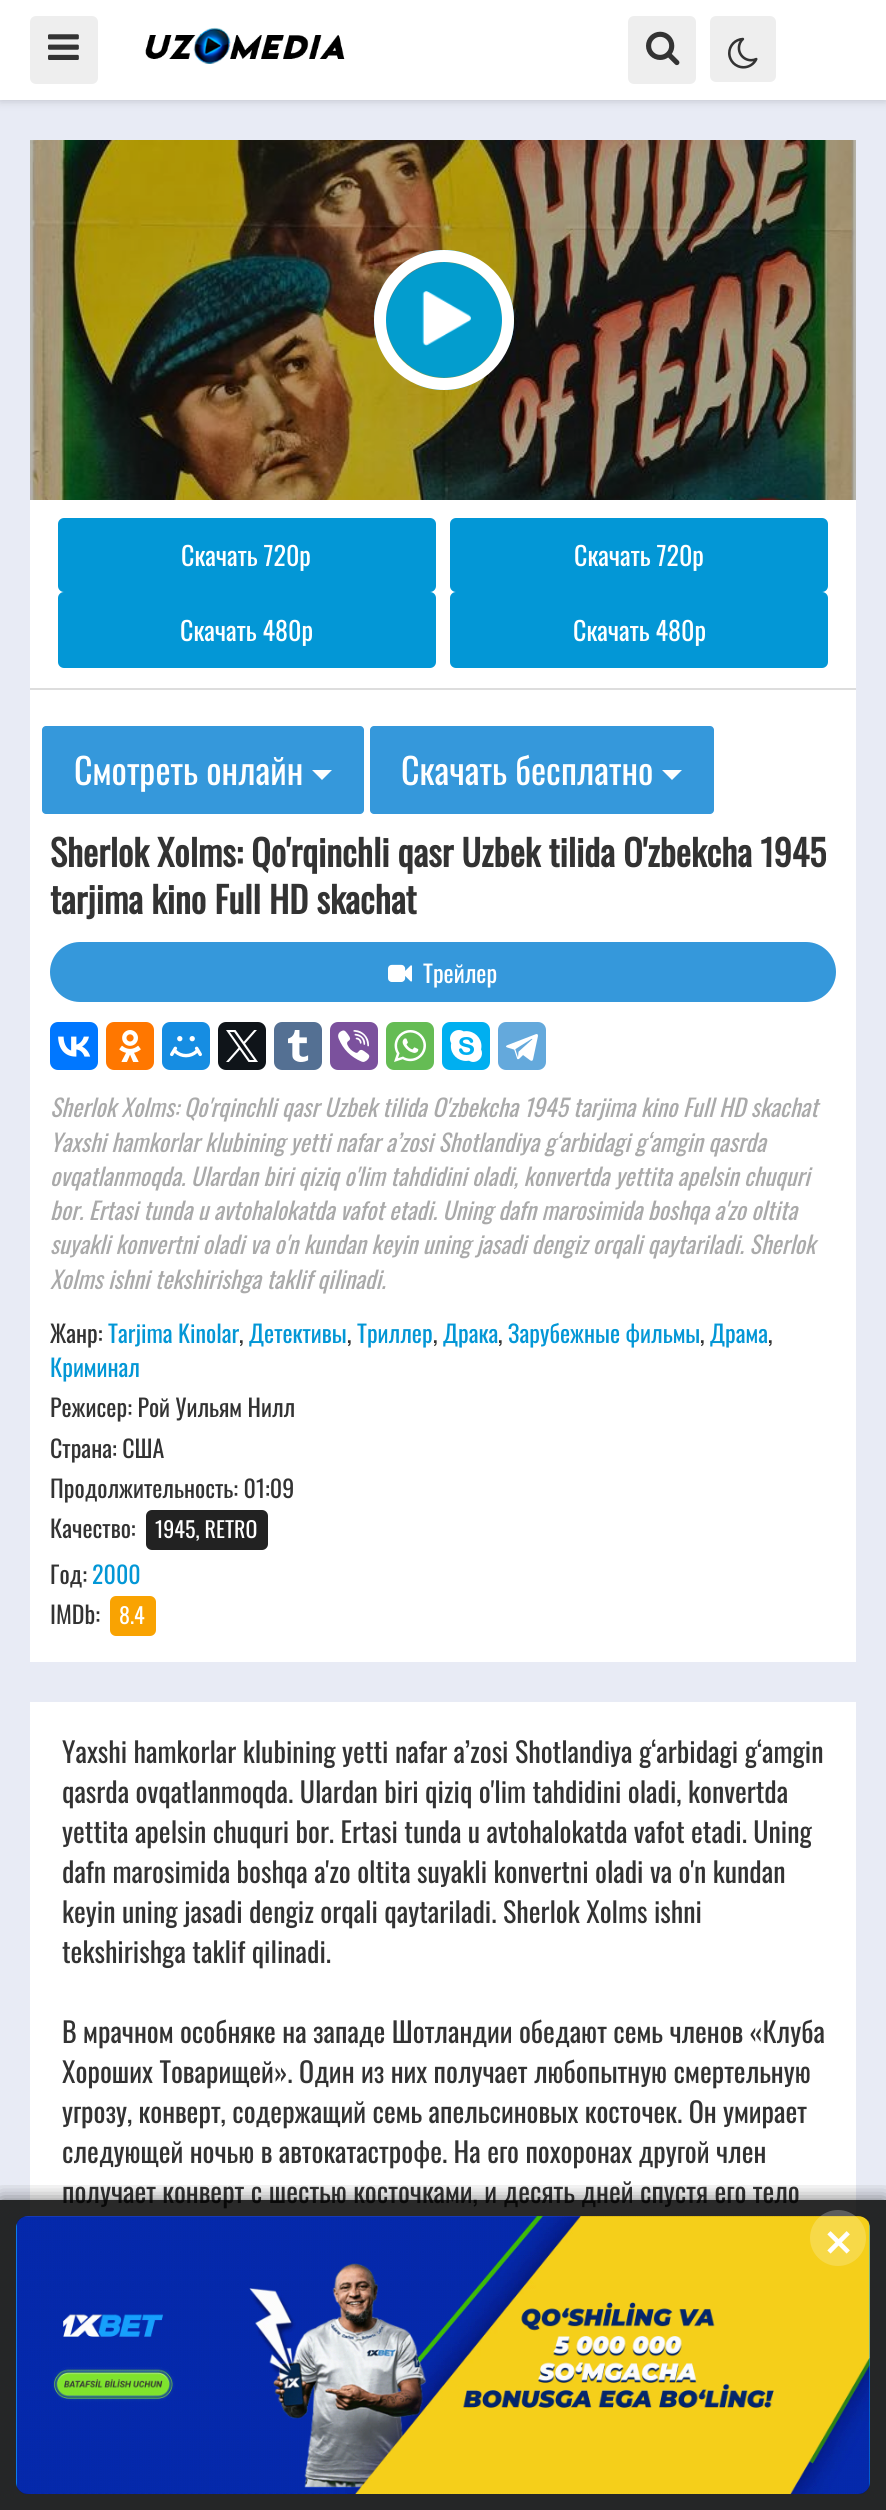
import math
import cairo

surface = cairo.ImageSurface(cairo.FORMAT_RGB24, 886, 2510)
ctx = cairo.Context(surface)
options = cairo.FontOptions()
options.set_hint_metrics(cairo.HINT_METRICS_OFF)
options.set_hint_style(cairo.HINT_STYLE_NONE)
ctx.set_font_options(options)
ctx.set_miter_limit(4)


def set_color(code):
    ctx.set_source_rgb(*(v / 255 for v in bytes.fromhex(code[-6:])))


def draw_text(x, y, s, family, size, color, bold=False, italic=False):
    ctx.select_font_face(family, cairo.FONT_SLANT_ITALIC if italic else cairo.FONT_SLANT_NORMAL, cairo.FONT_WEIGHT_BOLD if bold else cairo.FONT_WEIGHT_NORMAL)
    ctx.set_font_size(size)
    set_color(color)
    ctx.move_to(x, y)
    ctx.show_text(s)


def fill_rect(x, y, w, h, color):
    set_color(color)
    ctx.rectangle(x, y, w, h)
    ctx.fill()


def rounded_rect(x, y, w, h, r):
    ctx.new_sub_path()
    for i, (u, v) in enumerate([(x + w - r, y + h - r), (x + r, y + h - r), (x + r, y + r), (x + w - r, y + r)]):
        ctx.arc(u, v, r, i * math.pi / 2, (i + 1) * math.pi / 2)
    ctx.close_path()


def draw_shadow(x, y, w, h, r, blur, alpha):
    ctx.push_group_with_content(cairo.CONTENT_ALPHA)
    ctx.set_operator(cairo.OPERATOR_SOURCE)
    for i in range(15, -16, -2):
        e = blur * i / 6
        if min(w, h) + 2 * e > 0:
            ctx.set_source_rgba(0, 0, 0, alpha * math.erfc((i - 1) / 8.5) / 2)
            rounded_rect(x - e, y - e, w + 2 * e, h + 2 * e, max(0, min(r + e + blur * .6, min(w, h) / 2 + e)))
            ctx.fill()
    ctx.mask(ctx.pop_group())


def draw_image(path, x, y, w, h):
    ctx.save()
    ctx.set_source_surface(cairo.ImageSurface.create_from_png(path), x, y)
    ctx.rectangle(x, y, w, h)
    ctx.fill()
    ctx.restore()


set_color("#e8ebf5")
ctx.paint()
set_color("#000000")
draw_shadow(0, 0, 886, 100, 0, 5, 0.2)
fill_rect(0, 0, 886, 100, "#ffffff")
set_color("#eeeeee")
rounded_rect(30, 16, 68, 68, 6)
ctx.fill()
draw_image("assets/img1.png", 48, 34, 31, 26)
draw_image("assets/img2.png", 145, 27, 200, 37)
rounded_rect(628, 16, 68, 68, 6)
ctx.fill()
draw_image("assets/img3.png", 646, 31, 34, 35)
rounded_rect(710, 16, 66, 66, 6)
ctx.fill()
draw_image("assets/img4.png", 728, 37, 30, 32)
draw_image("assets/img5.png", 30, 140, 826, 360)
draw_image("assets/img6.png", 374, 250, 140, 140)
ctx.arc(444, 320, 64, 0, 2 * math.pi)
set_color("#ffffff")
ctx.set_line_width(12)
ctx.stroke()
fill_rect(30, 500, 826, 188, "#ffffff")
fill_rect(30, 688, 826, 2, "#dddddd")
set_color("#0397d6")
rounded_rect(58, 518, 378, 74, 6)
ctx.fill()
draw_text(181, 566, "Скачать 720p", "Oswald", 26, "#ffffff")
set_color("#0397d6")
rounded_rect(450, 518, 378, 74, 6)
ctx.fill()
draw_text(574, 566, "Скачать 720p", "Oswald", 26, "#ffffff")
set_color("#0397d6")
rounded_rect(58, 592, 378, 76, 6)
ctx.fill()
draw_text(180, 641, "Скачать 480p", "Oswald", 26, "#ffffff")
set_color("#0397d6")
rounded_rect(450, 592, 378, 76, 6)
ctx.fill()
draw_text(573, 641, "Скачать 480p", "Oswald", 26, "#ffffff")
fill_rect(30, 690, 826, 972, "#ffffff")
set_color("#3598db")
rounded_rect(42, 726, 322, 88, 4)
ctx.fill()
draw_text(74, 785, "Смотреть онлайн", "Oswald", 36, "#ffffff")
ctx.new_path()
ctx.move_to(312, 770)
ctx.line_to(332, 770)
ctx.line_to(322, 780)
ctx.close_path()
ctx.fill()
set_color("#3598db")
rounded_rect(370, 726, 344, 88, 4)
ctx.fill()
draw_text(401, 785, "Скачать бесплатно", "Oswald", 36, "#ffffff")
ctx.new_path()
ctx.move_to(662, 770)
ctx.line_to(682, 770)
ctx.line_to(672, 780)
ctx.close_path()
ctx.fill()
draw_text(50, 867, "Sherlok Xolms: Qo'rqinchli qasr Uzbek tilida O'zbekcha 1945", "Oswald", 36, "#333333", bold=True)
draw_text(50, 914, "tarjima kino Full HD skachat", "Oswald", 36, "#333333", bold=True)
set_color("#3598db")
rounded_rect(50, 942, 786, 60, 30)
ctx.fill()
draw_image("assets/img7.png", 388, 964, 24, 18)
draw_text(423, 983, "Трейлер", "Oswald", 24, "#ffffff")
set_color("#0077ff")
rounded_rect(50, 1022, 48, 48, 8)
ctx.fill()
draw_image("assets/img8.png", 58, 1036, 33, 21)
set_color("#ff7700")
rounded_rect(106, 1022, 48, 48, 8)
ctx.fill()
draw_image("assets/img9.png", 119, 1030, 22, 32)
set_color("#168de2")
rounded_rect(162, 1022, 48, 48, 8)
ctx.fill()
draw_image("assets/img10.png", 170, 1036, 32, 22)
set_color("#0f1419")
rounded_rect(218, 1022, 48, 48, 8)
ctx.fill()
draw_image("assets/img11.png", 226, 1030, 32, 32)
set_color("#547093")
rounded_rect(274, 1022, 48, 48, 8)
ctx.fill()
draw_image("assets/img12.png", 288, 1030, 21, 32)
set_color("#7b519d")
rounded_rect(330, 1022, 48, 48, 8)
ctx.fill()
draw_image("assets/img13.png", 338, 1030, 32, 32)
set_color("#65bc54")
rounded_rect(386, 1022, 48, 48, 8)
ctx.fill()
draw_image("assets/img14.png", 394, 1030, 32, 32)
set_color("#00aff0")
rounded_rect(442, 1022, 48, 48, 8)
ctx.fill()
draw_image("assets/img15.png", 450, 1030, 32, 32)
set_color("#64a9dc")
rounded_rect(498, 1022, 48, 48, 8)
ctx.fill()
draw_image("assets/img16.png", 506, 1034, 32, 27)
draw_text(50, 1117, "Sherlok Xolms: Qo'rqinchli qasr Uzbek tilida O'zbekcha 1945 tarjima kino Full HD skachat", "Oswald", 24, "#aaaaaa", italic=True)
draw_text(50, 1152, "Yaxshi hamkorlar klubining yetti nafar a’zosi Shotlandiya g‘arbidagi g‘amgin qasrda", "Oswald", 24, "#aaaaaa", italic=True)
draw_text(50, 1186, "ovqatlanmoqda. Ulardan biri qiziq o'lim tahdidini oladi, konvertda yettita apelsin chuquri", "Oswald", 24, "#aaaaaa", italic=True)
draw_text(50, 1220, "bor. Ertasi tunda u avtohalokatda vafot etadi. Uning dafn marosimida boshqa a'zo oltita", "Oswald", 24, "#aaaaaa", italic=True)
draw_text(50, 1254, "suyakli konvertni oladi va o'n kundan keyin uning jasadi dengiz orqali qaytariladi. Sherlok", "Oswald", 24, "#aaaaaa", italic=True)
draw_text(50, 1289, "Xolms ishni tekshirishga taklif qilinadi.", "Oswald", 24, "#aaaaaa", italic=True)
draw_text(50, 1343, "Жанр:", "Oswald", 24, "#333333")
draw_text(108, 1343, "Tarjima Kinolar", "Oswald", 24, "#0397d6")
draw_text(239, 1343, ",", "Oswald", 24, "#333333")
draw_text(249, 1343, "Детективы", "Oswald", 24, "#0397d6")
draw_text(347, 1343, ",", "Oswald", 24, "#333333")
draw_text(357, 1343, "Триллер", "Oswald", 24, "#0397d6")
draw_text(433, 1343, ",", "Oswald", 24, "#333333")
draw_text(443, 1343, "Драка", "Oswald", 24, "#0397d6")
draw_text(498, 1343, ",", "Oswald", 24, "#333333")
draw_text(508, 1343, "Зарубежные фильмы", "Oswald", 24, "#0397d6")
draw_text(700, 1343, ",", "Oswald", 24, "#333333")
draw_text(710, 1343, "Драма", "Oswald", 24, "#0397d6")
draw_text(768, 1343, ",", "Oswald", 24, "#333333")
draw_text(50, 1377, "Криминал", "Oswald", 24, "#0397d6")
draw_text(50, 1417, "Режисер: Рой Уильям Нилл", "Oswald", 24, "#333333")
draw_text(50, 1458, "Страна: США", "Oswald", 24, "#333333")
draw_text(50, 1498, "Продолжительность: 01:09", "Oswald", 24, "#333333")
draw_text(50, 1538, "Качество:", "Oswald", 24, "#333333")
set_color("#222222")
rounded_rect(146, 1510, 122, 40, 6)
ctx.fill()
draw_text(155, 1538, "1945, RETRO", "Oswald", 22, "#ffffff")
draw_text(50, 1584, "Год:", "Oswald", 24, "#333333")
draw_text(92, 1584, "2000", "Oswald", 24, "#0397d6")
draw_text(50, 1624, "IMDb:", "Oswald", 24, "#333333")
set_color("#f9a302")
rounded_rect(110, 1596, 46, 40, 6)
ctx.fill()
draw_text(119, 1624, "8.4", "Oswald", 22, "#ffffff")
fill_rect(30, 1702, 826, 514, "#ffffff")
draw_text(62, 1763, "Yaxshi hamkorlar klubining yetti nafar a’zosi Shotlandiya g‘arbidagi g‘amgin", "Oswald", 28, "#333333")
draw_text(62, 1803, "qasrda ovqatlanmoqda. Ulardan biri qiziq o'lim tahdidini oladi, konvertda", "Oswald", 28, "#333333")
draw_text(62, 1843, "yettita apelsin chuquri bor. Ertasi tunda u avtohalokatda vafot etadi. Uning", "Oswald", 28, "#333333")
draw_text(62, 1883, "dafn marosimida boshqa a'zo oltita suyakli konvertni oladi va o'n kundan", "Oswald", 28, "#333333")
draw_text(62, 1923, "keyin uning jasadi dengiz orqali qaytariladi. Sherlok Xolms ishni", "Oswald", 28, "#333333")
draw_text(62, 1963, "tekshirishga taklif qilinadi.", "Oswald", 28, "#333333")
draw_text(62, 2043, "В мрачном особняке на западе Шотландии обедают семь членов «Клуба", "Oswald", 28, "#333333")
draw_text(62, 2083, "Хороших Товарищей». Один из них получает любопытную смертельную", "Oswald", 28, "#333333")
draw_text(62, 2123, "угрозу, конверт, содержащий семь апельсиновых косточек. Он умирает", "Oswald", 28, "#333333")
draw_text(62, 2163, "следующей ночью в автокатастрофе. На его похоронах другой член", "Oswald", 28, "#333333")
draw_text(62, 2203, "получает конверт с шестью косточками, и десять дней спустя его тело", "Oswald", 28, "#333333")
ctx.save()
ctx.rectangle(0, 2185, 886, 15)
ctx.clip()
set_color("#000000")
draw_shadow(0, 2200, 886, 310, 0, 10, 0.3)
ctx.restore()
ctx.set_source_rgba(0, 0, 0, 0.6)
ctx.rectangle(0, 2200, 886, 310)
ctx.fill()
draw_image("assets/img17.png", 16, 2216, 854, 278)
ctx.set_source_rgba(1, 1, 1, 0.2)
ctx.arc(838, 2238, 28, 0, 2 * math.pi)
ctx.fill()
ctx.save()
ctx.rectangle(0, 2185, 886, 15)
ctx.clip()
set_color("#000000")
draw_shadow(0, 2200, 886, 310, 0, 10, 0.3)
ctx.restore()
ctx.set_source_rgba(0, 0, 0, 0.6)
ctx.rectangle(0, 2200, 886, 310)
ctx.fill()
draw_image("assets/img18.png", 16, 2216, 854, 278)
ctx.set_source_rgba(1, 1, 1, 0.2)
ctx.arc(838, 2238, 28, 0, 2 * math.pi)
ctx.fill()
draw_text(823, 2256, "✕", "DejaVu Sans", 36, "#ffffff", bold=True)
surface.write_to_png("output.png")
